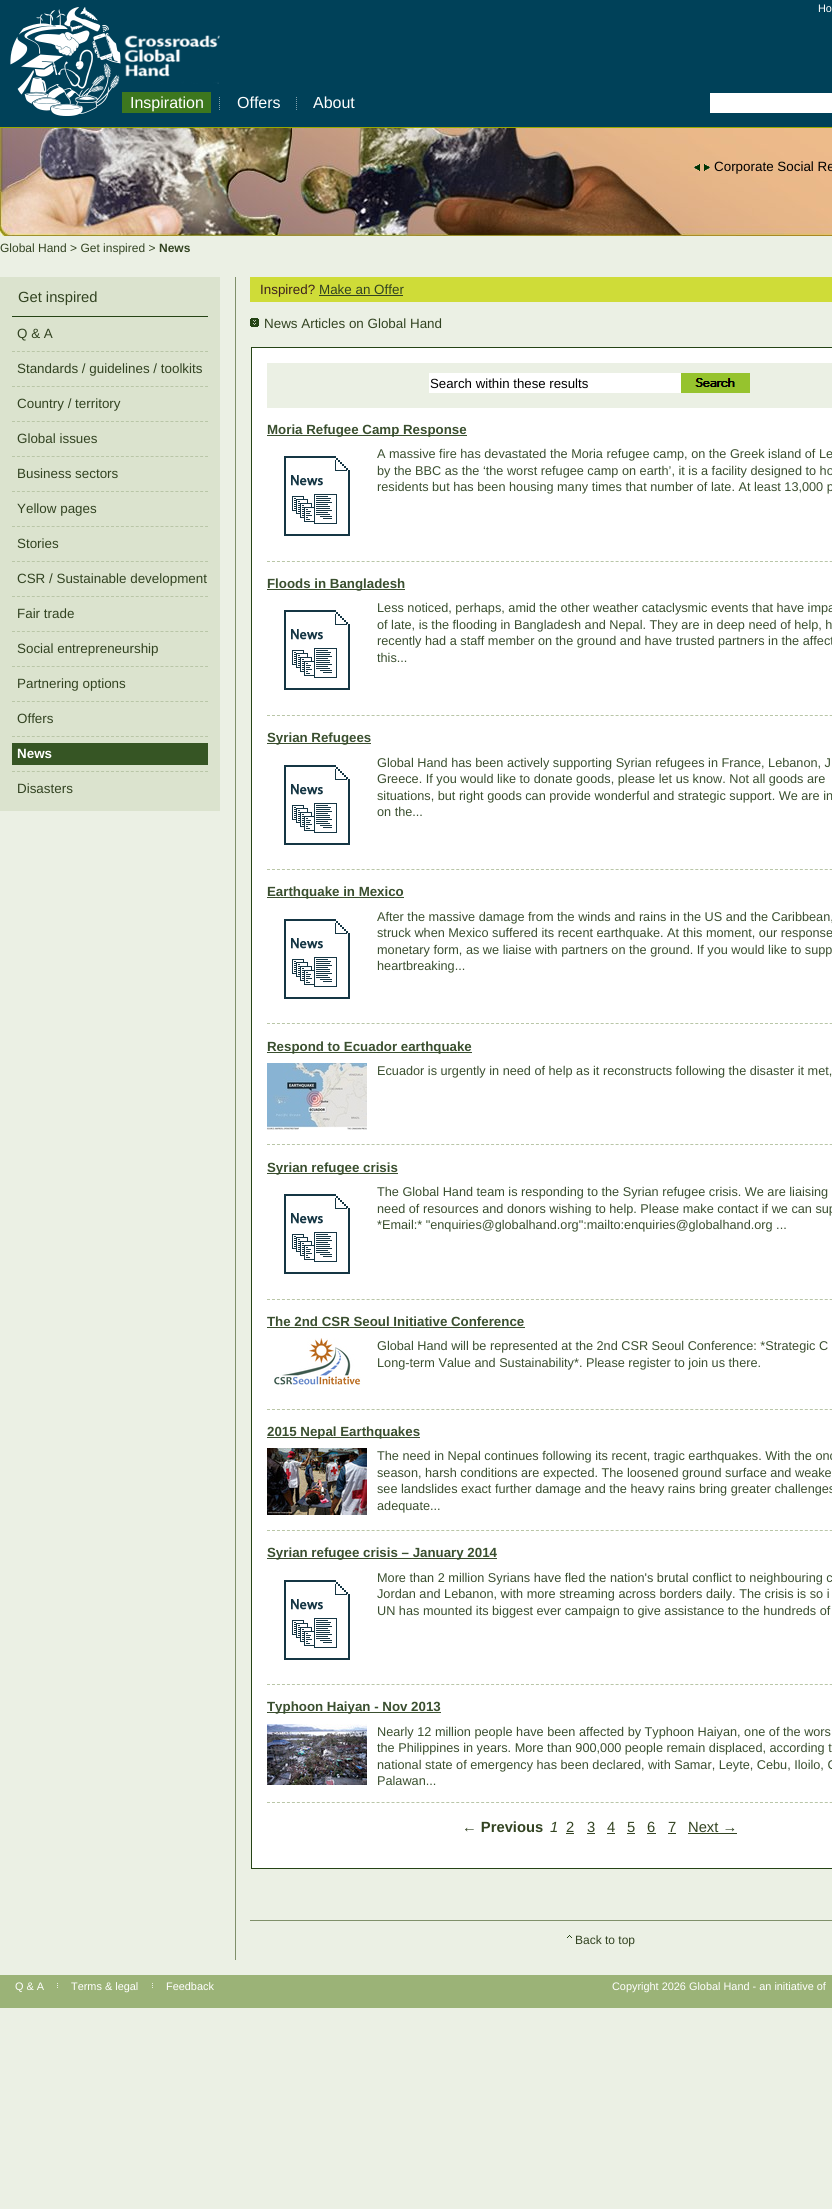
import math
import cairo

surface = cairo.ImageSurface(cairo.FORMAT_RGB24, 832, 2209)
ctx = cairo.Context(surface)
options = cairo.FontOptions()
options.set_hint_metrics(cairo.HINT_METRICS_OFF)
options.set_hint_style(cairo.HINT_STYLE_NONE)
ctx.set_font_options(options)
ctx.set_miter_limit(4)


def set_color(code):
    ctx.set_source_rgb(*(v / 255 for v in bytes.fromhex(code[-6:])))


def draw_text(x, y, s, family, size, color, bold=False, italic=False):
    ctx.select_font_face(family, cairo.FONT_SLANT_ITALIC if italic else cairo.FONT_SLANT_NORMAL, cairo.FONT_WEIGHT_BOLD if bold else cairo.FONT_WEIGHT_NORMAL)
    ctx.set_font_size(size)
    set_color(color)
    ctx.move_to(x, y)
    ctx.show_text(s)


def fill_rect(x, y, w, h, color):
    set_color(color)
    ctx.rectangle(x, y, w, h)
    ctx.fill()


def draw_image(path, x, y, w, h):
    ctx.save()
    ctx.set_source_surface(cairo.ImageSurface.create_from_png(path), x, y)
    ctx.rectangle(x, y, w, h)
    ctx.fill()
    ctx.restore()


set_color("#ebf0e4")
ctx.paint()
fill_rect(0, 0, 832, 127, "#004159")
fill_rect(0, 127, 832, 1, "#97a900")
draw_image("assets/img1.png", 10, 7, 210, 109)
draw_text(818, 12, "Ho", "Liberation Sans", 10.9, "#ffffff")
fill_rect(122, 92, 89, 21, "#3d771e")
draw_text(130, 108, "Inspiration", "Liberation Sans", 16, "#ffffff")
draw_image("assets/img2.png", 219, 97, 1, 13)
draw_text(237, 108, "Offers", "Liberation Sans", 16, "#ffffff")
draw_image("assets/img2.png", 296, 97, 1, 13)
draw_text(313, 108, "About", "Liberation Sans", 16, "#ffffff")
fill_rect(710, 93, 122, 20, "#ffffff")
draw_image("assets/img3.png", 0, 128, 832, 108)
draw_image("assets/img4.png", 694, 164, 6, 7)
draw_image("assets/img5.png", 704, 164, 6, 7)
draw_text(714, 171, "Corporate Social Re", "Liberation Sans", 13.4, "#000000")
draw_text(0, 252, "Global Hand > Get inspired >", "Liberation Sans", 12, "#324321")
draw_text(159, 252, "News", "Liberation Sans", 12, "#324321", bold=True)
fill_rect(235, 277, 1, 1683, "#7f906a")
fill_rect(0, 277, 220, 534, "#dbe3ce")
fill_rect(12, 316, 196, 1, "#254415")
draw_text(18, 302, "Get inspired", "Liberation Sans", 14.75, "#324321")
ctx.new_path()
ctx.move_to(12, 351.5)
ctx.line_to(208, 351.5)
set_color("#b9c6a7")
ctx.set_line_width(1)
ctx.set_dash([3, 1.95])
ctx.stroke()
draw_text(17, 338, "Q & A", "Liberation Sans", 13.4, "#324321")
ctx.new_path()
ctx.move_to(12, 386.5)
ctx.line_to(208, 386.5)
set_color("#b9c6a7")
ctx.stroke()
draw_text(17, 373, "Standards / guidelines / toolkits", "Liberation Sans", 13.4, "#324321")
ctx.new_path()
ctx.move_to(12, 421.5)
ctx.line_to(208, 421.5)
set_color("#b9c6a7")
ctx.stroke()
draw_text(17, 408, "Country / territory", "Liberation Sans", 13.4, "#324321")
ctx.new_path()
ctx.move_to(12, 456.5)
ctx.line_to(208, 456.5)
set_color("#b9c6a7")
ctx.stroke()
draw_text(17, 443, "Global issues", "Liberation Sans", 13.4, "#324321")
ctx.new_path()
ctx.move_to(12, 491.5)
ctx.line_to(208, 491.5)
set_color("#b9c6a7")
ctx.stroke()
draw_text(17, 478, "Business sectors", "Liberation Sans", 13.4, "#324321")
ctx.new_path()
ctx.move_to(12, 526.5)
ctx.line_to(208, 526.5)
set_color("#b9c6a7")
ctx.stroke()
draw_text(17, 513, "Yellow pages", "Liberation Sans", 13.4, "#324321")
ctx.new_path()
ctx.move_to(12, 561.5)
ctx.line_to(208, 561.5)
set_color("#b9c6a7")
ctx.stroke()
draw_text(17, 548, "Stories", "Liberation Sans", 13.4, "#324321")
ctx.new_path()
ctx.move_to(12, 596.5)
ctx.line_to(208, 596.5)
set_color("#b9c6a7")
ctx.stroke()
draw_text(17, 583, "CSR / Sustainable development", "Liberation Sans", 13.4, "#324321")
ctx.new_path()
ctx.move_to(12, 631.5)
ctx.line_to(208, 631.5)
set_color("#b9c6a7")
ctx.stroke()
draw_text(17, 618, "Fair trade", "Liberation Sans", 13.4, "#324321")
ctx.new_path()
ctx.move_to(12, 666.5)
ctx.line_to(208, 666.5)
set_color("#b9c6a7")
ctx.stroke()
draw_text(17, 653, "Social entrepreneurship", "Liberation Sans", 13.4, "#324321")
ctx.new_path()
ctx.move_to(12, 701.5)
ctx.line_to(208, 701.5)
set_color("#b9c6a7")
ctx.stroke()
draw_text(17, 688, "Partnering options", "Liberation Sans", 13.4, "#324321")
ctx.new_path()
ctx.move_to(12, 736.5)
ctx.line_to(208, 736.5)
set_color("#b9c6a7")
ctx.stroke()
draw_text(17, 723, "Offers", "Liberation Sans", 13.4, "#324321")
ctx.new_path()
ctx.move_to(12, 771.5)
ctx.line_to(208, 771.5)
set_color("#b9c6a7")
ctx.stroke()
fill_rect(12, 743, 196, 22, "#365524")
draw_text(17, 758, "News", "Liberation Sans", 13.4, "#ffffff", bold=True)
draw_text(17, 793, "Disasters", "Liberation Sans", 13.4, "#324321")
fill_rect(250, 277, 582, 25, "#cfdc38")
draw_text(260, 294, "Inspired?", "Liberation Sans", 13.4, "#3e221e")
draw_text(319, 294, "Make an Offer", "Liberation Sans", 13.4, "#324321")
fill_rect(319, 295, 84, 1, "#324321")
draw_image("assets/img6.png", 250, 318, 9, 9)
draw_text(264, 328, "News Articles on Global Hand", "Liberation Sans", 13.4, "#324321")
set_color("#ffffff")
ctx.rectangle(251.5, 347.5, 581, 1521)
ctx.fill_preserve()
set_color("#254415")
ctx.set_dash([])
ctx.stroke()
fill_rect(267, 363, 565, 45, "#ebf0e4")
fill_rect(429, 373, 252, 20, "#ffffff")
draw_text(430, 388, "Search within these results", "Liberation Sans", 13.25, "#000000")
draw_image("assets/img7.png", 681, 373, 69, 20)
ctx.new_path()
ctx.move_to(267, 561.5)
ctx.line_to(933, 561.5)
set_color("#b9c6a7")
ctx.set_dash([3, 1.98])
ctx.stroke()
fill_rect(267, 435, 200, 1, "#3a4f2f")
draw_text(267, 434, "Moria Refugee Camp Response", "Liberation Sans", 13.3, "#3a4f2f", bold=True)
draw_image("assets/img8.png", 284, 456, 66, 80)
draw_text(377, 458, "A massive fire has devastated the Moria refugee camp, on the Greek island of Le", "Liberation Sans", 12.7, "#3a4f2f")
draw_text(377, 475, "by the BBC as the ‘the worst refugee camp on earth’, it is a facility designed to ho", "Liberation Sans", 12.7, "#3a4f2f")
draw_text(377, 491, "residents but has been housing many times that number of late. At least 13,000 p", "Liberation Sans", 12.7, "#3a4f2f")
ctx.new_path()
ctx.move_to(267, 715.5)
ctx.line_to(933, 715.5)
set_color("#b9c6a7")
ctx.stroke()
fill_rect(267, 589, 138, 1, "#3a4f2f")
draw_text(267, 588, "Floods in Bangladesh", "Liberation Sans", 13.3, "#3a4f2f", bold=True)
draw_image("assets/img8.png", 284, 610, 66, 80)
draw_text(377, 612, "Less noticed, perhaps, amid the other weather cataclysmic events that have impa", "Liberation Sans", 12.7, "#3a4f2f")
draw_text(377, 629, "of late, is the flooding in Bangladesh and Nepal. They are in deep need of help, h", "Liberation Sans", 12.7, "#3a4f2f")
draw_text(377, 645, "recently had a staff member on the ground and have trusted partners in the affect", "Liberation Sans", 12.7, "#3a4f2f")
draw_text(377, 662, "this...", "Liberation Sans", 12.7, "#3a4f2f")
ctx.new_path()
ctx.move_to(267, 869.5)
ctx.line_to(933, 869.5)
set_color("#b9c6a7")
ctx.stroke()
fill_rect(267, 743, 104, 1, "#3a4f2f")
draw_text(267, 742, "Syrian Refugees", "Liberation Sans", 13.3, "#3a4f2f", bold=True)
draw_image("assets/img8.png", 284, 765, 66, 80)
draw_text(377, 767, "Global Hand has been actively supporting Syrian refugees in France, Lebanon, J", "Liberation Sans", 12.7, "#3a4f2f")
draw_text(377, 783, "Greece. If you would like to donate goods, please let us know. Not all goods are", "Liberation Sans", 12.7, "#3a4f2f")
draw_text(377, 800, "situations, but right goods can provide wonderful and strategic support. We are in", "Liberation Sans", 12.7, "#3a4f2f")
draw_text(377, 816, "on the...", "Liberation Sans", 12.7, "#3a4f2f")
ctx.new_path()
ctx.move_to(267, 1023.5)
ctx.line_to(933, 1023.5)
set_color("#b9c6a7")
ctx.stroke()
fill_rect(267, 897, 137, 1, "#3a4f2f")
draw_text(267, 896, "Earthquake in Mexico", "Liberation Sans", 13.3, "#3a4f2f", bold=True)
draw_image("assets/img8.png", 284, 919, 66, 80)
draw_text(377, 921, "After the massive damage from the winds and rains in the US and the Caribbean,", "Liberation Sans", 12.7, "#3a4f2f")
draw_text(377, 937, "struck when Mexico suffered its recent earthquake. At this moment, our response", "Liberation Sans", 12.7, "#3a4f2f")
draw_text(377, 954, "monetary form, as we liaise with partners on the ground. If you would like to supp", "Liberation Sans", 12.7, "#3a4f2f")
draw_text(377, 970, "heartbreaking...", "Liberation Sans", 12.7, "#3a4f2f")
ctx.new_path()
ctx.move_to(267, 1144.5)
ctx.line_to(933, 1144.5)
set_color("#b9c6a7")
ctx.stroke()
fill_rect(267, 1052, 205, 1, "#3a4f2f")
draw_text(267, 1051, "Respond to Ecuador earthquake", "Liberation Sans", 13.3, "#3a4f2f", bold=True)
draw_image("assets/img9.png", 267, 1063, 100, 67)
draw_text(377, 1075, "Ecuador is urgently in need of help as it reconstructs following the disaster it met,", "Liberation Sans", 12.7, "#3a4f2f")
ctx.new_path()
ctx.move_to(267, 1299.5)
ctx.line_to(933, 1299.5)
set_color("#b9c6a7")
ctx.stroke()
fill_rect(267, 1173, 131, 1, "#3a4f2f")
draw_text(267, 1172, "Syrian refugee crisis", "Liberation Sans", 13.3, "#3a4f2f", bold=True)
draw_image("assets/img8.png", 284, 1194, 66, 80)
draw_text(377, 1196, "The Global Hand team is responding to the Syrian refugee crisis. We are liaising", "Liberation Sans", 12.7, "#3a4f2f")
draw_text(377, 1213, "need of resources and donors wishing to help. Please make contact if we can sup", "Liberation Sans", 12.7, "#3a4f2f")
draw_text(377, 1229, "*Email:* \"enquiries@globalhand.org\":mailto:enquiries@globalhand.org ...", "Liberation Sans", 12.7, "#3a4f2f")
ctx.new_path()
ctx.move_to(267, 1409.5)
ctx.line_to(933, 1409.5)
set_color("#b9c6a7")
ctx.stroke()
draw_text(267, 1326, "The 2nd CSR Seoul Initiative Conference", "Liberation Sans", 13.3, "#3a4f2f", bold=True)
fill_rect(267, 1327, 258, 1, "#3a4f2f")
draw_image("assets/img10.png", 274, 1338, 87, 47)
draw_text(377, 1350, "Global Hand will be represented at the 2nd CSR Seoul Conference: *Strategic C", "Liberation Sans", 12.7, "#3a4f2f")
draw_text(377, 1367, "Long-term Value and Sustainability*. Please register to join us there.", "Liberation Sans", 12.7, "#3a4f2f")
ctx.new_path()
ctx.move_to(267, 1530.5)
ctx.line_to(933, 1530.5)
set_color("#b9c6a7")
ctx.stroke()
fill_rect(267, 1437, 153, 1, "#3a4f2f")
draw_text(267, 1436, "2015 Nepal Earthquakes", "Liberation Sans", 13.3, "#3a4f2f", bold=True)
draw_image("assets/img11.png", 267, 1448, 100, 67)
draw_text(377, 1460, "The need in Nepal continues following its recent, tragic earthquakes. With the onc", "Liberation Sans", 12.7, "#3a4f2f")
draw_text(377, 1477, "season, harsh conditions are expected. The loosened ground surface and weake", "Liberation Sans", 12.7, "#3a4f2f")
draw_text(377, 1493, "see landslides exact further damage and the heavy rains bring greater challenges", "Liberation Sans", 12.7, "#3a4f2f")
draw_text(377, 1510, "adequate...", "Liberation Sans", 12.7, "#3a4f2f")
ctx.new_path()
ctx.move_to(267, 1684.5)
ctx.line_to(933, 1684.5)
set_color("#b9c6a7")
ctx.stroke()
fill_rect(267, 1558, 230, 1, "#3a4f2f")
draw_text(267, 1557, "Syrian refugee crisis – January 2014", "Liberation Sans", 13.3, "#3a4f2f", bold=True)
draw_image("assets/img8.png", 284, 1580, 66, 80)
draw_text(377, 1582, "More than 2 million Syrians have fled the nation's brutal conflict to neighbouring c", "Liberation Sans", 12.7, "#3a4f2f")
draw_text(377, 1598, "Jordan and Lebanon, with more streaming across borders daily. The crisis is so i", "Liberation Sans", 12.7, "#3a4f2f")
draw_text(377, 1615, "UN has mounted its biggest ever campaign to give assistance to the hundreds of", "Liberation Sans", 12.7, "#3a4f2f")
ctx.new_path()
ctx.move_to(267, 1802.5)
ctx.line_to(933, 1802.5)
set_color("#b9c6a7")
ctx.stroke()
fill_rect(267, 1712, 174, 1, "#3a4f2f")
draw_text(267, 1711, "Typhoon Haiyan - Nov 2013", "Liberation Sans", 13.3, "#3a4f2f", bold=True)
draw_image("assets/img12.png", 267, 1724, 100, 61)
draw_text(377, 1736, "Nearly 12 million people have been affected by Typhoon Haiyan, one of the wors", "Liberation Sans", 12.7, "#3a4f2f")
draw_text(377, 1752, "the Philippines in years. More than 900,000 people remain displaced, according t", "Liberation Sans", 12.7, "#3a4f2f")
draw_text(377, 1769, "national state of emergency has been declared, with Samar, Leyte, Cebu, Iloilo, C", "Liberation Sans", 12.7, "#3a4f2f")
draw_text(377, 1785, "Palawan...", "Liberation Sans", 12.7, "#3a4f2f")
draw_text(462, 1832, "← Previous", "Liberation Sans", 14.75, "#324321", bold=True)
draw_text(550, 1832, "1", "Liberation Sans", 14.75, "#324321", italic=True)
draw_text(566, 1832, "2", "Liberation Sans", 14.75, "#324321")
fill_rect(566, 1833, 8, 1, "#324321")
draw_text(587, 1832, "3", "Liberation Sans", 14.75, "#324321")
fill_rect(587, 1833, 8, 1, "#324321")
draw_text(607, 1832, "4", "Liberation Sans", 14.75, "#324321")
fill_rect(607, 1833, 8, 1, "#324321")
draw_text(627, 1832, "5", "Liberation Sans", 14.75, "#324321")
fill_rect(627, 1833, 8, 1, "#324321")
draw_text(647, 1832, "6", "Liberation Sans", 14.75, "#324321")
fill_rect(647, 1833, 9, 1, "#324321")
draw_text(668, 1832, "7", "Liberation Sans", 14.75, "#324321")
fill_rect(668, 1833, 8, 1, "#324321")
draw_text(688, 1832, "Next →", "Liberation Sans", 14.75, "#324321")
fill_rect(688, 1833, 49, 1, "#324321")
fill_rect(250, 1920, 582, 1, "#7f906a")
draw_image("assets/img13.png", 567, 1935, 5, 3)
draw_text(575, 1944, "Back to top", "Liberation Sans", 12, "#324321")
fill_rect(0, 1975, 832, 33, "#9bb377")
draw_text(15, 1990, "Q & A", "Liberation Sans", 10.9, "#ffffff")
draw_image("assets/img14.png", 57, 1983, 1, 5)
draw_text(71, 1990, "Terms & legal", "Liberation Sans", 10.9, "#ffffff")
draw_image("assets/img14.png", 152, 1983, 1, 5)
draw_text(166, 1990, "Feedback", "Liberation Sans", 10.9, "#ffffff")
draw_text(612, 1990, "Copyright 2026 Global Hand - an initiative of", "Liberation Sans", 10.9, "#ffffff")
surface.write_to_png("output.png")
